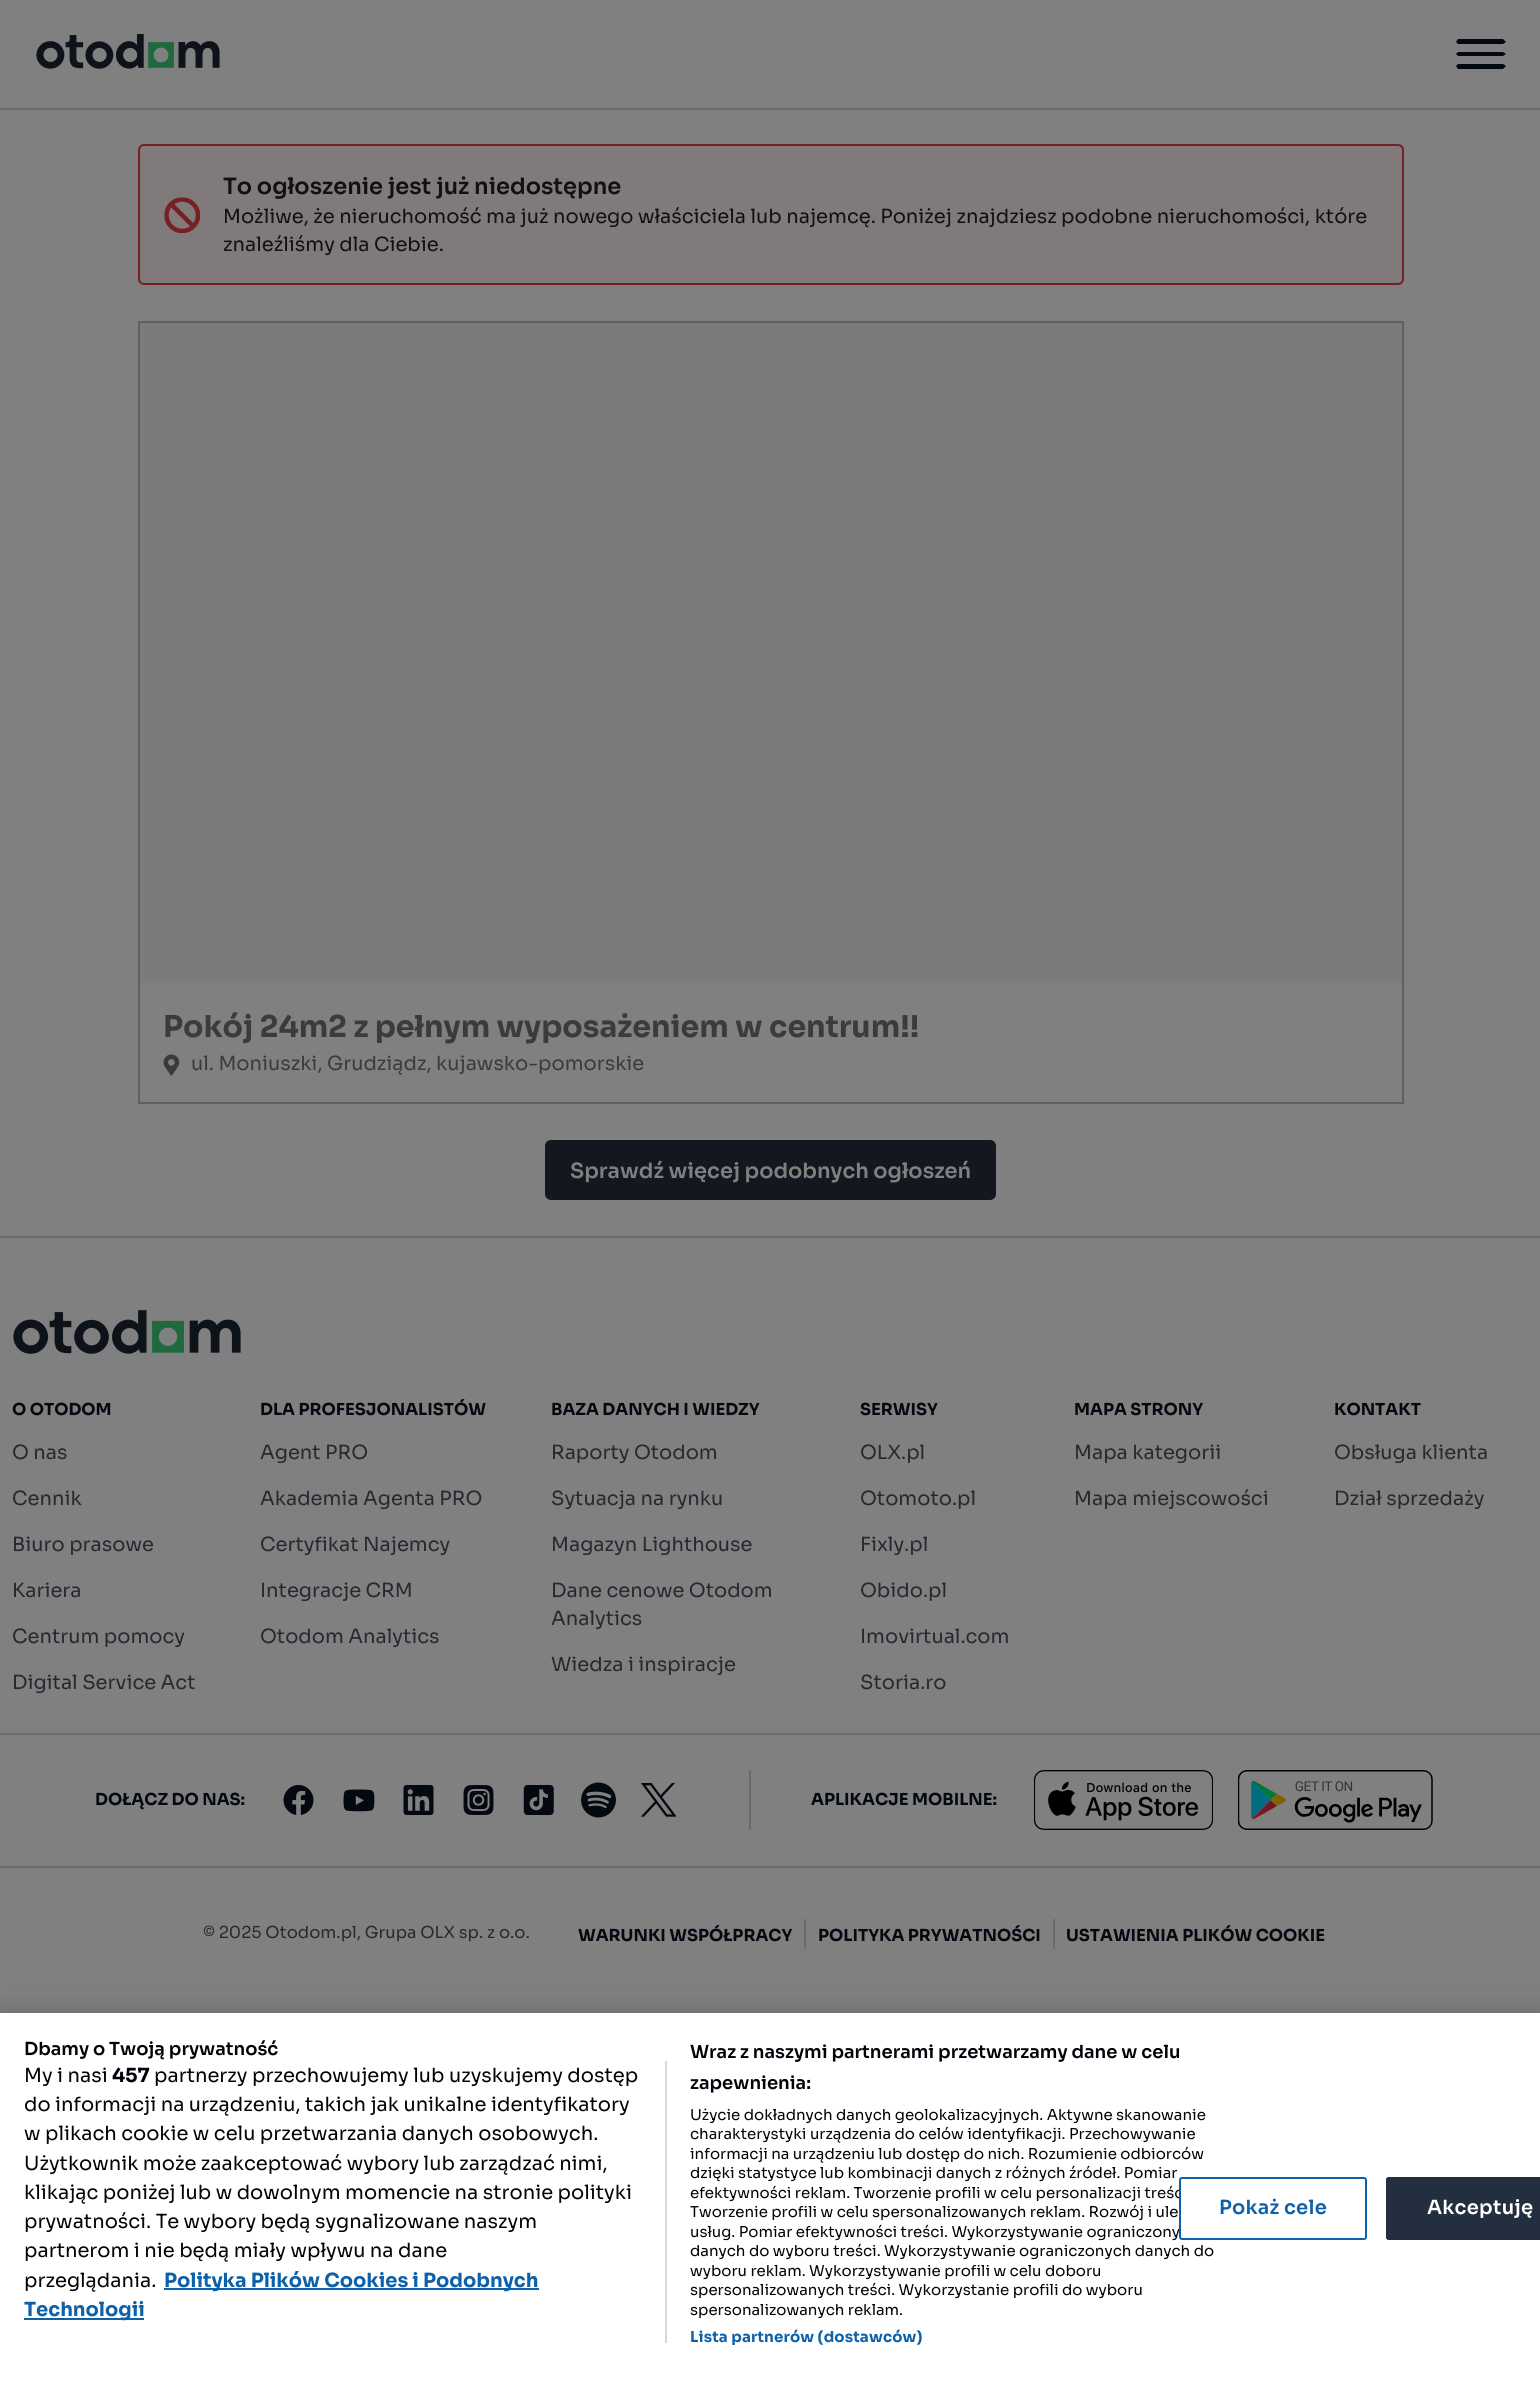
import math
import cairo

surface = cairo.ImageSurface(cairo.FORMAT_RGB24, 1540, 2381)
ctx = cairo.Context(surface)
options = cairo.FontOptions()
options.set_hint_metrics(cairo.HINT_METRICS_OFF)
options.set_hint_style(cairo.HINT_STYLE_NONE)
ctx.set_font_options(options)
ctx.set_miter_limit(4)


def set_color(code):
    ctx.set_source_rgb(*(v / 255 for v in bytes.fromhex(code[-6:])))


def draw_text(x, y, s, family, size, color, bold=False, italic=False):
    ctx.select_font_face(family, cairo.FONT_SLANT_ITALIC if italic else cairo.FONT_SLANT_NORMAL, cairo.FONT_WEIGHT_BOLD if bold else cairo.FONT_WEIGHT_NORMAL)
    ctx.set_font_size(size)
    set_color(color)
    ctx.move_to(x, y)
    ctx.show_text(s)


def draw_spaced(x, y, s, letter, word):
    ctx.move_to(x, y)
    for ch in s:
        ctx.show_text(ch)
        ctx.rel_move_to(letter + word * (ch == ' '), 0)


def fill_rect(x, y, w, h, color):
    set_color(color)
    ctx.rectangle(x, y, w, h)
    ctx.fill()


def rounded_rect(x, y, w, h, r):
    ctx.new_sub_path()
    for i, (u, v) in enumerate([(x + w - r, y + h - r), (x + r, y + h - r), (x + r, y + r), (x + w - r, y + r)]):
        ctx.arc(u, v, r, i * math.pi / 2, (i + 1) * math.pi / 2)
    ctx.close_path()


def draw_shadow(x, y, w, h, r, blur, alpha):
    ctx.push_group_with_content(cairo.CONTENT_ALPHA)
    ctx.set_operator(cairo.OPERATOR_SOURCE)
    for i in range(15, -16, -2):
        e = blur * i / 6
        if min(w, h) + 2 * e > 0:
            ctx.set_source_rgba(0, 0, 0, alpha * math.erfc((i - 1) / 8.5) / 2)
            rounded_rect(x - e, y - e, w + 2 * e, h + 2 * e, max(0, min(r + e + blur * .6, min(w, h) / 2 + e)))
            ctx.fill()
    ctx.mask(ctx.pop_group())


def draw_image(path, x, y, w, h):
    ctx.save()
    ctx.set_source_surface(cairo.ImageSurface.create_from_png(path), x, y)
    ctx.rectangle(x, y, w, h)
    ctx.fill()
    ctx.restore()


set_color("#808080")
ctx.paint()
fill_rect(0, 108, 1540, 2, "#6a6b6d")
draw_image("assets/img1.png", 36, 34, 184, 35)
set_color("#040911")
ctx.new_path()
ctx.move_to(1456, 42)
ctx.line_to(1458, 39)
ctx.line_to(1503, 39)
ctx.line_to(1506, 42)
ctx.line_to(1503, 44)
ctx.line_to(1458, 44)
ctx.close_path()
ctx.move_to(1458, 52)
ctx.line_to(1456, 54)
ctx.line_to(1458, 56)
ctx.line_to(1503, 56)
ctx.line_to(1506, 54)
ctx.line_to(1503, 52)
ctx.close_path()
ctx.move_to(1458, 64)
ctx.line_to(1456, 66)
ctx.line_to(1458, 69)
ctx.line_to(1503, 69)
ctx.line_to(1506, 66)
ctx.line_to(1503, 64)
ctx.close_path()
ctx.fill()
set_color("#807a7a")
rounded_rect(139, 145, 1264, 139, 5)
ctx.fill_preserve()
set_color("#772024")
ctx.stroke()
draw_image("assets/img2.png", 164, 197, 37, 37)
draw_text(223, 194, "To ogłoszenie jest już niedostępne", "Sora SemiBold", 22.5, "#111111")
draw_text(223, 223, "Możliwe, że nieruchomość ma już nowego właściciela lub najemcę. Poniżej znajdziesz podobne nieruchomości, które", "Sora", 19.5, "#111111")
draw_text(223, 251, "znaleźliśmy dla Ciebie.", "Sora", 19.5, "#111111")
ctx.rectangle(139, 322, 1264, 781)
set_color("#5f5f5f")
ctx.stroke()
ctx.set_source_rgba(0.427, 0.427, 0.427, 0.2)
ctx.rectangle(140, 323, 1263, 660)
ctx.fill()
draw_text(163, 1037, "Pokój 24m2 z pełnym wyposażeniem w centrum!!", "Sora", 30, "#3b3b3b", bold=True)
draw_image("assets/img3.png", 163, 1054, 17, 22)
draw_text(191, 1070, "ul. Moniuszki, Grudziądz, kujawsko-pomorskie", "Sora", 19.5, "#3b3b3b")
set_color("#121720")
rounded_rect(546, 1141, 449, 58, 5)
ctx.fill_preserve()
ctx.stroke()
draw_text(570, 1178, "Sprawdź więcej podobnych ogłoszeń", "Sora SemiBold", 21, "#808080")
fill_rect(0, 1236, 1540, 2, "#6a6b6d")
draw_image("assets/img4.png", 13, 1310, 228, 44)
draw_text(12, 1415, "O OTODOM", "Sora", 16.5, "#040911", bold=True)
draw_text(12, 1459, "O nas", "Sora", 19.5, "#252930")
draw_text(12, 1505, "Cennik", "Sora", 19.5, "#252930")
draw_text(12, 1551, "Biuro prasowe", "Sora", 19.5, "#252930")
draw_text(12, 1597, "Kariera", "Sora", 19.5, "#252930")
draw_text(12, 1643, "Centrum pomocy", "Sora", 19.5, "#252930")
draw_text(12, 1689, "Digital Service Act", "Sora", 19.5, "#252930")
draw_text(260, 1415, "DLA PROFESJONALISTÓW", "Sora", 16.5, "#040911", bold=True)
draw_text(260, 1459, "Agent PRO", "Sora", 19.5, "#252930")
draw_text(260, 1505, "Akademia Agenta PRO", "Sora", 19.5, "#252930")
draw_text(260, 1551, "Certyfikat Najemcy", "Sora", 19.5, "#252930")
draw_text(260, 1597, "Integracje CRM", "Sora", 19.5, "#252930")
draw_text(260, 1643, "Otodom Analytics", "Sora", 19.5, "#252930")
draw_text(551, 1415, "BAZA DANYCH I WIEDZY", "Sora", 16.5, "#040911", bold=True)
draw_text(551, 1459, "Raporty Otodom", "Sora", 19.5, "#252930")
draw_text(551, 1505, "Sytuacja na rynku", "Sora", 19.5, "#252930")
draw_text(551, 1551, "Magazyn Lighthouse", "Sora", 19.5, "#252930")
draw_text(551, 1597, "Dane cenowe Otodom", "Sora", 19.5, "#252930")
draw_text(551, 1625, "Analytics", "Sora", 19.5, "#252930")
draw_text(551, 1671, "Wiedza i inspiracje", "Sora", 19.5, "#252930")
draw_text(860, 1415, "SERWISY", "Sora", 16.5, "#040911", bold=True)
draw_text(860, 1459, "OLX.pl", "Sora", 19.5, "#252930")
draw_text(860, 1505, "Otomoto.pl", "Sora", 19.5, "#252930")
draw_text(860, 1551, "Fixly.pl", "Sora", 19.5, "#252930")
draw_text(860, 1597, "Obido.pl", "Sora", 19.5, "#252930")
draw_text(860, 1643, "Imovirtual.com", "Sora", 19.5, "#252930")
draw_text(860, 1689, "Storia.ro", "Sora", 19.5, "#252930")
draw_text(1074, 1415, "MAPA STRONY", "Sora", 16.5, "#040911", bold=True)
draw_text(1074, 1459, "Mapa kategorii", "Sora", 19.5, "#252930")
draw_text(1074, 1505, "Mapa miejscowości", "Sora", 19.5, "#252930")
draw_text(1334, 1415, "KONTAKT", "Sora", 16.5, "#040911", bold=True)
draw_text(1334, 1459, "Obsługa klienta", "Sora", 19.5, "#252930")
draw_text(1334, 1505, "Dział sprzedaży", "Sora", 19.5, "#252930")
fill_rect(0, 1733, 1540, 2, "#6a6b6d")
fill_rect(749, 1770, 2, 60, "#6a6b6d")
draw_text(95, 1805, "DOŁĄCZ DO NAS:", "Sora", 16.5, "#040911", bold=True)
draw_image("assets/img5.png", 283, 1785, 31, 30)
draw_image("assets/img6.png", 343, 1789, 32, 23)
draw_image("assets/img7.png", 403, 1785, 31, 30)
draw_image("assets/img8.png", 463, 1785, 31, 30)
draw_image("assets/img9.png", 523, 1785, 31, 30)
draw_image("assets/img10.png", 581, 1782, 35, 36)
draw_image("assets/img11.png", 641, 1783, 36, 34)
draw_text(811, 1805, "APLIKACJE MOBILNE:", "Sora", 16.5, "#040911", bold=True)
draw_image("assets/img12.png", 1034, 1770, 179, 60)
draw_image("assets/img13.png", 1238, 1770, 195, 60)
fill_rect(0, 1866, 1540, 2, "#6a6b6d")
draw_text(203, 1938, "© 2025 Otodom.pl, Grupa OLX sp. z o.o.", "Sora", 16.5, "#252930")
fill_rect(804, 1919, 2, 30, "#6a6b6d")
draw_text(578, 1941, "WARUNKI WSPÓŁPRACY", "Sora", 16.5, "#040911", bold=True)
fill_rect(1053, 1919, 2, 30, "#6a6b6d")
draw_text(818, 1941, "POLITYKA PRYWATNOŚCI", "Sora", 16.5, "#040911", bold=True)
draw_text(1066, 1941, "USTAWIENIA PLIKÓW COOKIE", "Sora", 16.5, "#040911", bold=True)
set_color("#000000")
draw_shadow(0, 2013, 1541, 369, 0, 13.5, 0.2)
fill_rect(0, 2013, 1540, 368, "#ffffff")
draw_text(24, 2055, "Dbamy o Twoją prywatność", "Sora SemiBold", 18, "#020309")
draw_text(690, 2058, "Wraz z naszymi partnerami przetwarzamy dane w celu", "Sora SemiBold", 18, "#020309")
draw_text(690, 2089, "zapewnienia:", "Sora SemiBold", 18, "#020309")
draw_text(690, 2120, "Użycie dokładnych danych geolokalizacyjnych. Aktywne skanowanie", "Sora", 15, "#020309")
draw_text(690, 2139, "charakterystyki urządzenia do celów identyfikacji. Przechowywanie", "Sora", 15, "#020309")
draw_text(690, 2159, "informacji na urządzeniu lub dostęp do nich. Rozumienie odbiorców", "Sora", 15, "#020309")
draw_text(690, 2178, "dzięki statystyce lub kombinacji danych z różnych źródeł. Pomiar", "Sora", 15, "#020309")
draw_text(690, 2198, "efektywności reklam. Tworzenie profili w celu personalizacji treśc", "Sora", 15, "#020309")
draw_text(690, 2217, "Tworzenie profili w celu spersonalizowanych reklam. Rozwój i ule", "Sora", 15, "#020309")
draw_text(690, 2237, "usług. Pomiar efektywności treści. Wykorzystywanie ograniczony", "Sora", 15, "#020309")
draw_text(690, 2256, "danych do wyboru treści. Wykorzystywanie ograniczonych danych do", "Sora", 15, "#020309")
draw_text(690, 2276, "wyboru reklam. Wykorzystywanie profili w celu doboru", "Sora", 15, "#020309")
draw_text(690, 2295, "spersonalizowanych treści. Wykorzystanie profili do wyboru", "Sora", 15, "#020309")
draw_text(690, 2315, "spersonalizowanych reklam.", "Sora", 15, "#020309")
ctx.select_font_face("Sora", cairo.FONT_SLANT_NORMAL, cairo.FONT_WEIGHT_BOLD)
set_color("#0d61ab")
draw_spaced(690, 2342, "Lista partnerów (dostawców)", 0.15, 0)
fill_rect(665, 2061, 2, 282, "#d8d8d8")
draw_text(24, 2082, "My i nasi", "Sora", 19.5, "#020309")
draw_text(112, 2082, "457", "Sora", 19.5, "#020309", bold=True)
draw_text(154, 2082, "partnerzy przechowujemy lub uzyskujemy dostęp", "Sora", 19.5, "#020309")
draw_text(24, 2111, "do informacji na urządzeniu, takich jak unikalne identyfikatory", "Sora", 19.5, "#020309")
draw_text(24, 2140, "w plikach cookie w celu przetwarzania danych osobowych.", "Sora", 19.5, "#020309")
draw_text(24, 2170, "Użytkownik może zaakceptować wybory lub zarządzać nimi,", "Sora", 19.5, "#020309")
draw_text(24, 2199, "klikając poniżej lub w dowolnym momencie na stronie polityki", "Sora", 19.5, "#020309")
draw_text(24, 2228, "prywatności. Te wybory będą sygnalizowane naszym", "Sora", 19.5, "#020309")
draw_text(24, 2257, "partnerom i nie będą miały wpływu na dane", "Sora", 19.5, "#020309")
draw_text(24, 2287, "przeglądania.", "Sora", 19.5, "#020309")
fill_rect(164, 2288, 375, 2, "#0d61ab")
draw_text(164, 2287, "Polityka Plików Cookies i Podobnych", "Sora", 19.5, "#0d61ab", bold=True)
fill_rect(24, 2318, 120, 2, "#0d61ab")
draw_text(24, 2316, "Technologii", "Sora", 19.5, "#0d61ab", bold=True)
set_color("#ffffff")
rounded_rect(1180, 2178, 186, 61, 2)
ctx.fill_preserve()
set_color("#0d61ab")
ctx.stroke()
ctx.select_font_face("Sora SemiBold")
draw_spaced(1219, 2214, "Pokaż cele", 0.25, 0)
set_color("#232e3f")
ctx.new_path()
ctx.move_to(1389, 2177)
ctx.line_to(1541, 2177)
ctx.line_to(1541, 2240)
ctx.line_to(1389, 2240)
ctx.curve_to(1387.5, 2240, 1386, 2238.5, 1386, 2237)
ctx.line_to(1386, 2180)
ctx.curve_to(1386, 2178.5, 1387.5, 2177, 1389, 2177)
ctx.close_path()
ctx.fill()
rounded_rect(1387, 2178, 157, 61, 2)
ctx.stroke()
set_color("#ffffff")
draw_spaced(1427, 2214, "Akceptuję", 0.25, 0)
surface.write_to_png("output.png")
